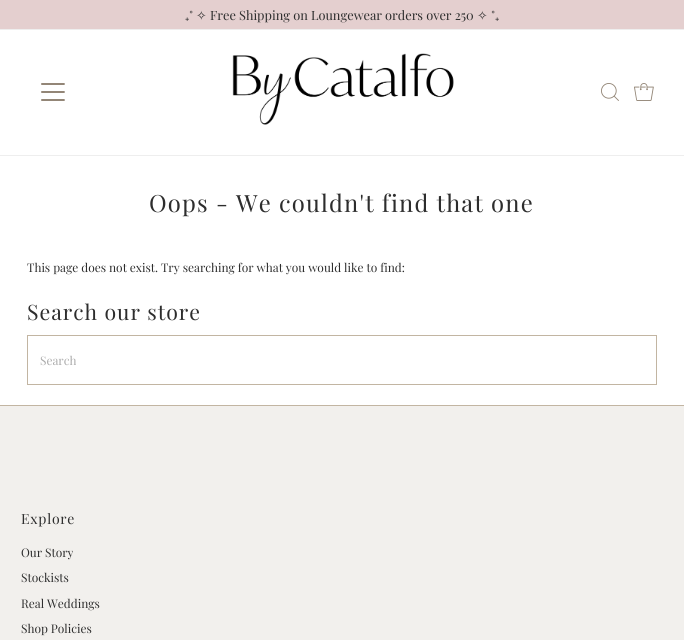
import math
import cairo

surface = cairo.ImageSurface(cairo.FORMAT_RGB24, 684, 640)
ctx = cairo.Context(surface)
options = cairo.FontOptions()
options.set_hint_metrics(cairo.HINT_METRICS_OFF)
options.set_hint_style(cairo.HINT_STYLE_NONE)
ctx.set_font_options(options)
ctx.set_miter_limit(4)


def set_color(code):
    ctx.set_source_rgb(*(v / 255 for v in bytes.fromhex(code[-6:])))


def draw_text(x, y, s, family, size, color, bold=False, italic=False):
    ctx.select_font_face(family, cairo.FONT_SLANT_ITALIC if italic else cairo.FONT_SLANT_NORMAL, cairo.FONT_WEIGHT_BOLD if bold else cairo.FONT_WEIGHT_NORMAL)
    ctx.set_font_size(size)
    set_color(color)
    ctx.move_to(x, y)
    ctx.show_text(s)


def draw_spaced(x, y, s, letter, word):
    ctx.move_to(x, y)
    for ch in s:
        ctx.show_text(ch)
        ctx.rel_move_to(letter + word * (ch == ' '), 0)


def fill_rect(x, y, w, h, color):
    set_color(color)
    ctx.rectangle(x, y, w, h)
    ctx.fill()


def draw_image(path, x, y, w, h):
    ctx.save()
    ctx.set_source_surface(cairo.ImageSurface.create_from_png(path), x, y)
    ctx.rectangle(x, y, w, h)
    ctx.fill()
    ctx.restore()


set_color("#ffffff")
ctx.paint()
fill_rect(0, 0, 684, 29, "#e4cfcf")
draw_text(189, 20, "˚", "Liberation Serif", 12.75, "#2d2d2d")
draw_text(196, 20, "✧", "DejaVu Sans", 12.75, "#2d2d2d")
draw_text(210, 20, "Free Shipping on Loungewear orders over 250", "Playfair Display", 12.75, "#2d2d2d")
draw_text(477, 20, "✧", "DejaVu Sans", 12.75, "#2d2d2d")
draw_text(491, 20, "˚", "Liberation Serif", 12.75, "#2d2d2d")
draw_text(185, 20, "₊", "Noto Sans", 12.75, "#2d2d2d")
draw_text(495, 20, "₊", "Noto Sans", 12.75, "#2d2d2d")
fill_rect(0, 29, 684, 1, "#eeeeee")
fill_rect(0, 155, 684, 1, "#eeeeee")
draw_image("assets/img1.png", 41, 83, 24, 18)
draw_image("assets/img2.png", 232, 53, 222, 72)
draw_image("assets/img3.png", 601, 83, 18, 18)
draw_image("assets/img4.png", 634, 83, 20, 18)
ctx.select_font_face("Playfair Display")
ctx.set_font_size(23.75)
set_color("#2d2d2d")
draw_spaced(149, 212, "Oops - We couldn't find that one", 1.2, 0)
draw_text(27, 272, "This page does not exist. Try searching for what you would like to find:", "Playfair Display", 11.9, "#2d2d2d")
ctx.set_font_size(21.25)
draw_spaced(27, 320, "Search our store", 1, 0)
ctx.rectangle(27.5, 335.5, 629, 49)
set_color("#c2b5a2")
ctx.set_line_width(1)
ctx.stroke()
draw_text(40, 365, "Search", "Playfair Display", 11.9, "#aaaaaa")
fill_rect(0, 406, 684, 234, "#f2f0ed")
fill_rect(0, 405, 684, 1, "#c2b5a2")
ctx.set_font_size(14)
set_color("#2d2d2d")
draw_spaced(21, 524, "Explore", 0.75, 0)
draw_text(21, 557, "Our Story", "Playfair Display", 11.9, "#2d2d2d")
draw_text(21, 582, "Stockists", "Playfair Display", 11.9, "#2d2d2d")
draw_text(21, 608, "Real Weddings", "Playfair Display", 11.9, "#2d2d2d")
draw_text(21, 633, "Shop Policies", "Playfair Display", 11.9, "#2d2d2d")
surface.write_to_png("output.png")
